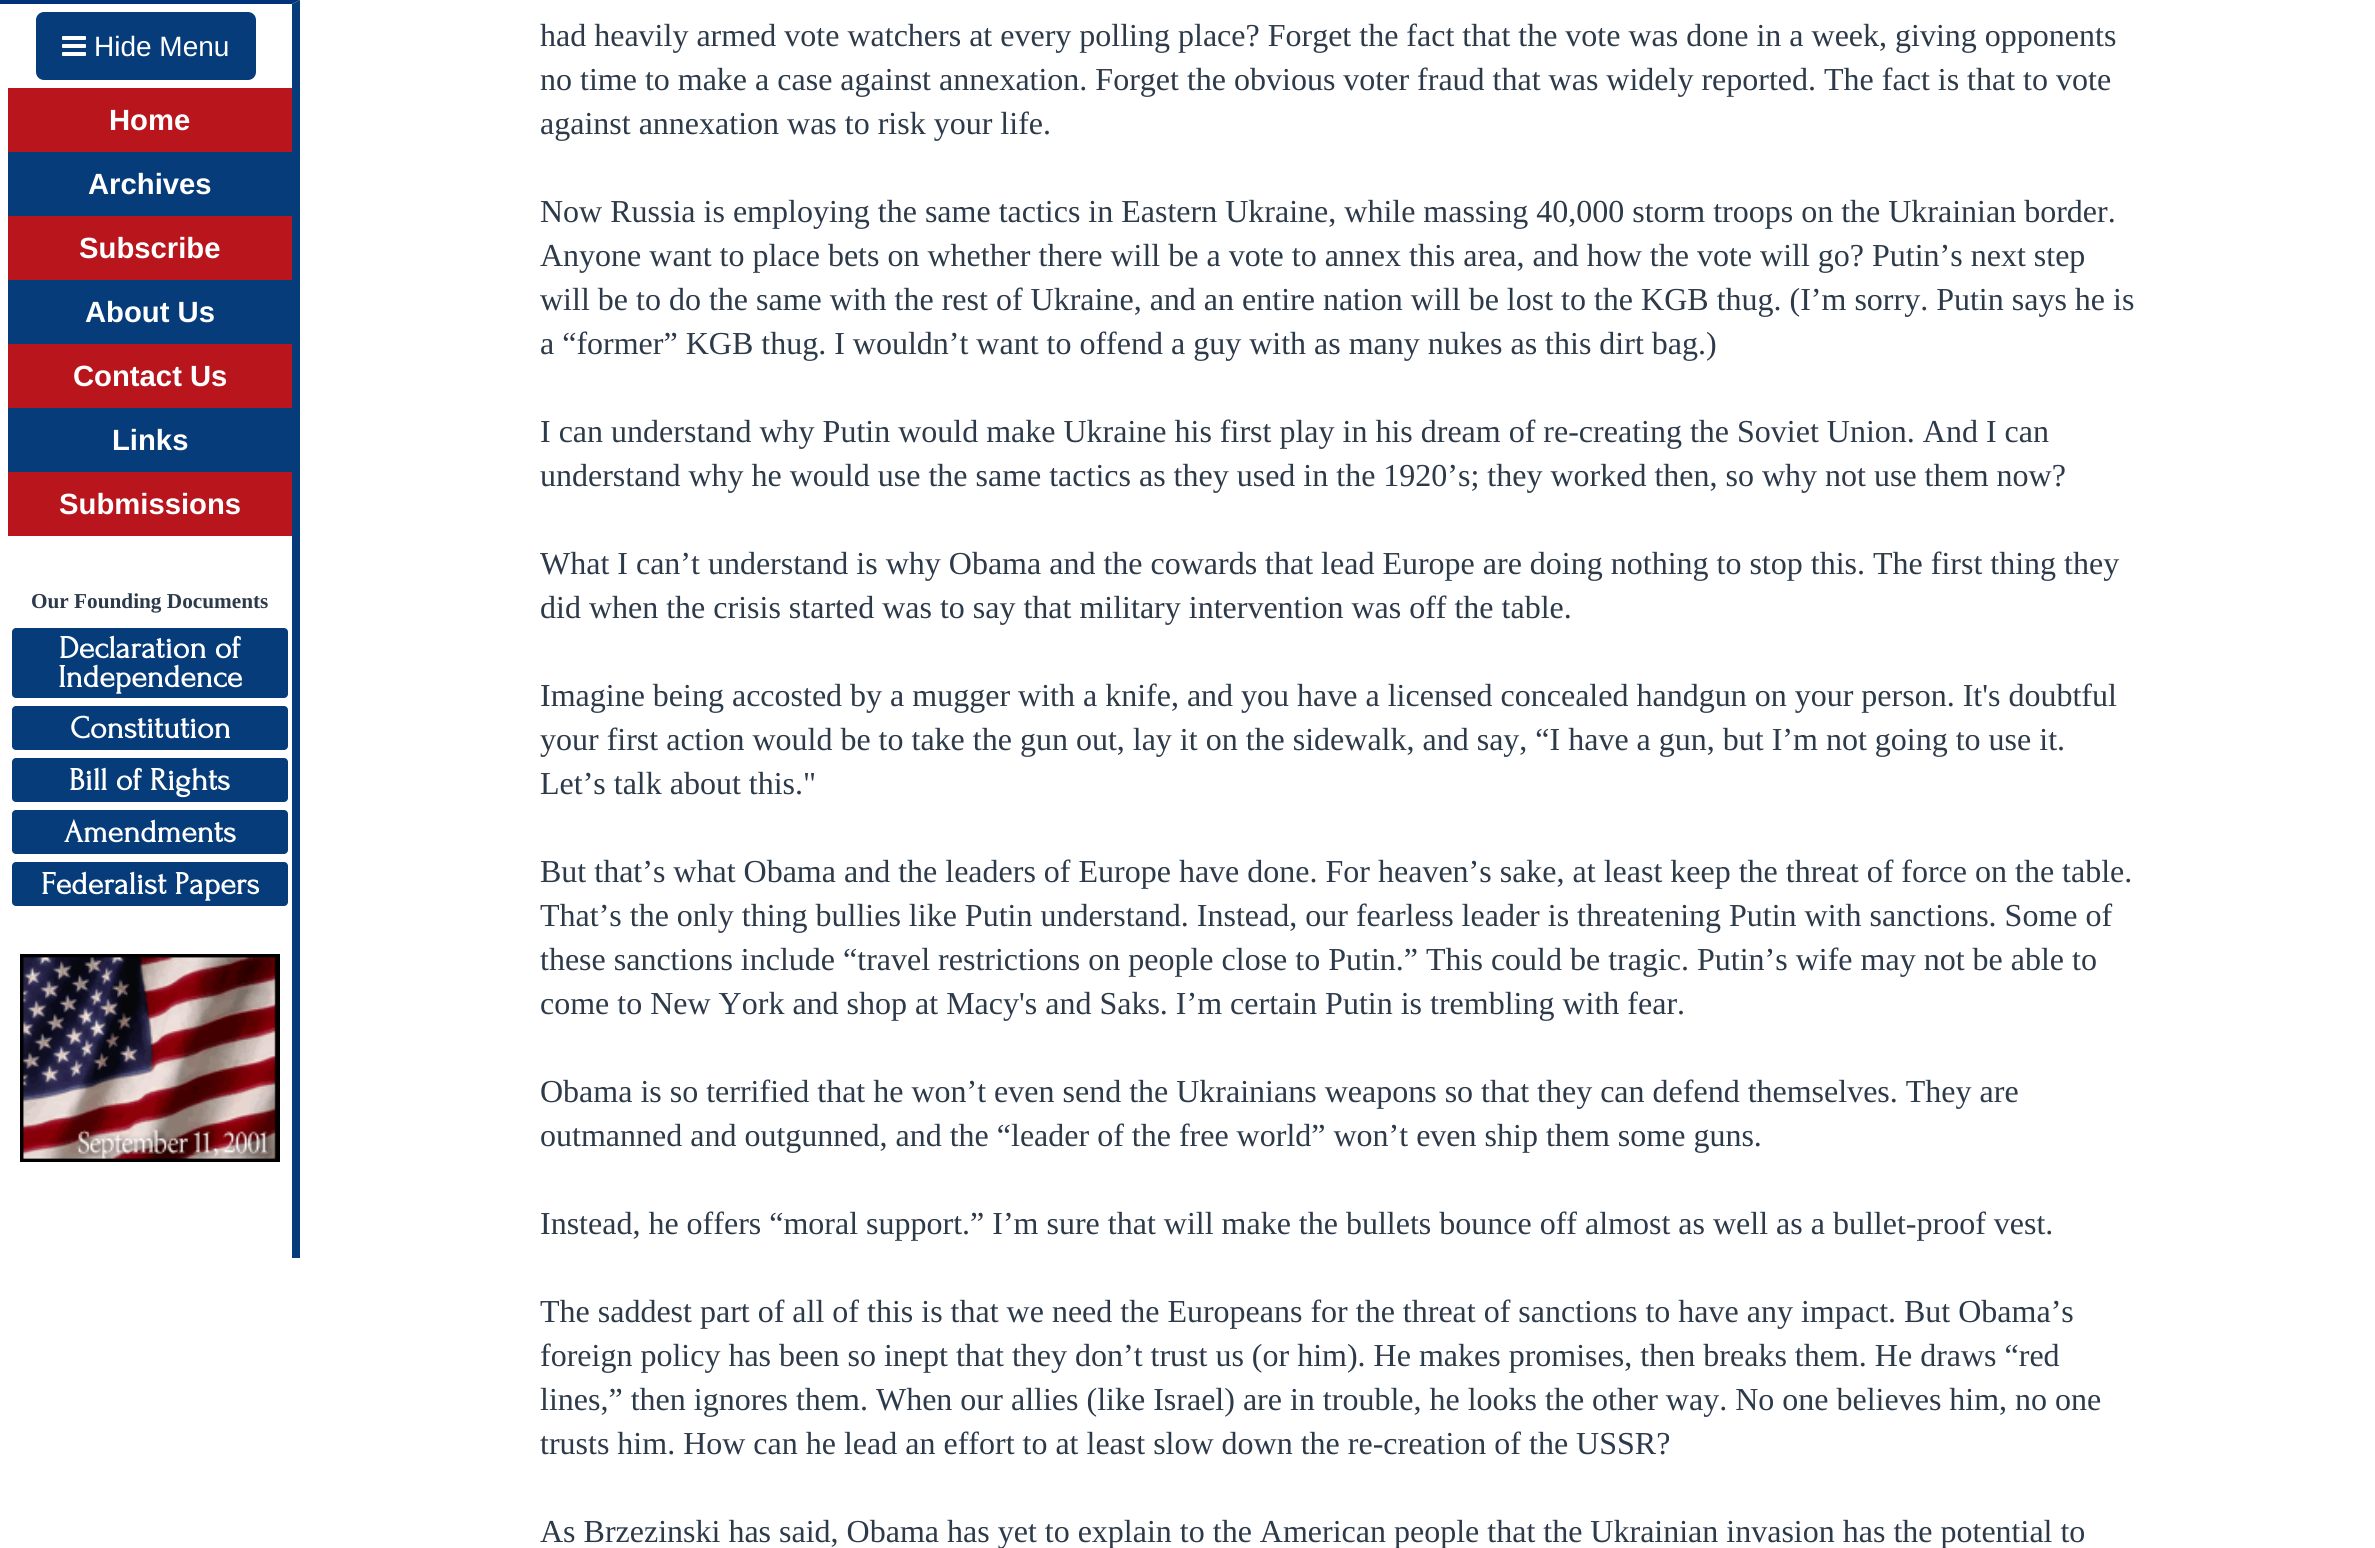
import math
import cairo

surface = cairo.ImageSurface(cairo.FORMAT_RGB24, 2375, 1548)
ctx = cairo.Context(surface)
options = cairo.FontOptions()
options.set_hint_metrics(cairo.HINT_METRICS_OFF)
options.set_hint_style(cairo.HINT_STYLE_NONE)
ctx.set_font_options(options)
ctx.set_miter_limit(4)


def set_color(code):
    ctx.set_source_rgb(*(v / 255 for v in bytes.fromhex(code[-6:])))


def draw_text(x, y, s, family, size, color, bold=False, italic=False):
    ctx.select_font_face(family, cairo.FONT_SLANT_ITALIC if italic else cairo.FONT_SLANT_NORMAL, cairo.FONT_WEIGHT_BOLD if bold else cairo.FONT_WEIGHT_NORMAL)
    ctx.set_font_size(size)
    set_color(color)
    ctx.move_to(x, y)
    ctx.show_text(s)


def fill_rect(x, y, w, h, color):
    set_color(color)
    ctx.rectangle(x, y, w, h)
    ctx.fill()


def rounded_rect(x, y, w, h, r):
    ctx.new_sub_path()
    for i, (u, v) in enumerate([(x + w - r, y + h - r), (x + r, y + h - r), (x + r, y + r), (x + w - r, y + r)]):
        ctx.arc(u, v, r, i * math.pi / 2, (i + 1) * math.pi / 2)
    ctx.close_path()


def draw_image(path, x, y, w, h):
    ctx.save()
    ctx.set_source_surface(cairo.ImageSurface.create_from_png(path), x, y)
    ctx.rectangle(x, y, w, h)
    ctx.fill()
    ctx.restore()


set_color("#ffffff")
ctx.paint()
set_color("#00337c")
ctx.new_path()
ctx.move_to(0, 0)
ctx.line_to(300, 0)
ctx.line_to(292, 4)
ctx.line_to(0, 4)
ctx.close_path()
ctx.fill()
set_color("#063c79")
ctx.new_path()
ctx.move_to(300, 0)
ctx.line_to(300, 1258)
ctx.line_to(292, 1258)
ctx.line_to(292, 4)
ctx.close_path()
ctx.fill()
rounded_rect(36, 12, 220, 68, 8)
ctx.fill()
draw_image("assets/img1.png", 62, 36, 24, 20)
draw_text(94, 56, "Hide Menu", "Liberation Sans", 28, "#ffffff")
fill_rect(8, 88, 284, 64, "#b8151c")
draw_text(109, 130, "Home", "Liberation Sans", 29.25, "#ffffff", bold=True)
fill_rect(8, 152, 284, 64, "#063c79")
draw_text(88, 194, "Archives", "Liberation Sans", 29.25, "#ffffff", bold=True)
fill_rect(8, 216, 284, 64, "#b8151c")
draw_text(79, 258, "Subscribe", "Liberation Sans", 29.25, "#ffffff", bold=True)
fill_rect(8, 280, 284, 64, "#063c79")
draw_text(85, 322, "About Us", "Liberation Sans", 29.25, "#ffffff", bold=True)
fill_rect(8, 344, 284, 64, "#b8151c")
draw_text(73, 386, "Contact Us", "Liberation Sans", 29.25, "#ffffff", bold=True)
fill_rect(8, 408, 284, 64, "#063c79")
draw_text(112, 450, "Links", "Liberation Sans", 29.25, "#ffffff", bold=True)
fill_rect(8, 472, 284, 64, "#b8151c")
draw_text(59, 514, "Submissions", "Liberation Sans", 29.25, "#ffffff", bold=True)
draw_text(31, 608, "Our Founding Documents", "Liberation Serif", 21.25, "#2d3a4a", bold=True)
set_color("#063c79")
rounded_rect(12, 628, 276, 70, 4)
ctx.fill()
draw_text(59, 658, "Declaration of", "Forum", 32, "#ffffff", bold=True)
draw_text(58, 687, "Independence", "Forum", 32, "#ffffff", bold=True)
set_color("#063c79")
rounded_rect(12, 706, 276, 44, 4)
ctx.fill()
draw_text(70, 738, "Constitution", "Forum", 32, "#ffffff", bold=True)
set_color("#063c79")
rounded_rect(12, 758, 276, 44, 4)
ctx.fill()
draw_text(69, 790, "Bill of Rights", "Forum", 32, "#ffffff", bold=True)
set_color("#063c79")
rounded_rect(12, 810, 276, 44, 4)
ctx.fill()
draw_text(64, 842, "Amendments", "Forum", 32, "#ffffff", bold=True)
set_color("#063c79")
rounded_rect(12, 862, 276, 44, 4)
ctx.fill()
draw_text(41, 894, "Federalist Papers", "Forum", 32, "#ffffff", bold=True)
draw_image("assets/img2.png", 20, 954, 260, 208)
draw_text(540, 46, "had heavily armed vote watchers at every polling place? Forget the fact that the vote was done in a week, giving opponents", "Liberation Serif", 32, "#2d3a4a")
draw_text(540, 90, "no time to make a case against annexation. Forget the obvious voter fraud that was widely reported. The fact is that to vote", "Liberation Serif", 32, "#2d3a4a")
draw_text(540, 134, "against annexation was to risk your life.", "Liberation Serif", 32, "#2d3a4a")
draw_text(540, 222, "Now Russia is employing the same tactics in Eastern Ukraine, while massing 40,000 storm troops on the Ukrainian border.", "Liberation Serif", 32, "#2d3a4a")
draw_text(540, 266, "Anyone want to place bets on whether there will be a vote to annex this area, and how the vote will go? Putin’s next step", "Liberation Serif", 32, "#2d3a4a")
draw_text(540, 310, "will be to do the same with the rest of Ukraine, and an entire nation will be lost to the KGB thug. (I’m sorry. Putin says he is", "Liberation Serif", 32, "#2d3a4a")
draw_text(540, 354, "a “former” KGB thug. I wouldn’t want to offend a guy with as many nukes as this dirt bag.)", "Liberation Serif", 32, "#2d3a4a")
draw_text(540, 442, "I can understand why Putin would make Ukraine his first play in his dream of re-creating the Soviet Union. And I can", "Liberation Serif", 32, "#2d3a4a")
draw_text(540, 486, "understand why he would use the same tactics as they used in the 1920’s; they worked then, so why not use them now?", "Liberation Serif", 32, "#2d3a4a")
draw_text(540, 574, "What I can’t understand is why Obama and the cowards that lead Europe are doing nothing to stop this. The first thing they", "Liberation Serif", 32, "#2d3a4a")
draw_text(540, 618, "did when the crisis started was to say that military intervention was off the table.", "Liberation Serif", 32, "#2d3a4a")
draw_text(540, 706, "Imagine being accosted by a mugger with a knife, and you have a licensed concealed handgun on your person. It's doubtful", "Liberation Serif", 32, "#2d3a4a")
draw_text(540, 750, "your first action would be to take the gun out, lay it on the sidewalk, and say, “I have a gun, but I’m not going to use it.", "Liberation Serif", 32, "#2d3a4a")
draw_text(540, 794, "Let’s talk about this.\"", "Liberation Serif", 32, "#2d3a4a")
draw_text(540, 882, "But that’s what Obama and the leaders of Europe have done. For heaven’s sake, at least keep the threat of force on the table.", "Liberation Serif", 32, "#2d3a4a")
draw_text(540, 926, "That’s the only thing bullies like Putin understand. Instead, our fearless leader is threatening Putin with sanctions. Some of", "Liberation Serif", 32, "#2d3a4a")
draw_text(540, 970, "these sanctions include “travel restrictions on people close to Putin.” This could be tragic. Putin’s wife may not be able to", "Liberation Serif", 32, "#2d3a4a")
draw_text(540, 1014, "come to New York and shop at Macy's and Saks. I’m certain Putin is trembling with fear.", "Liberation Serif", 32, "#2d3a4a")
draw_text(540, 1102, "Obama is so terrified that he won’t even send the Ukrainians weapons so that they can defend themselves. They are", "Liberation Serif", 32, "#2d3a4a")
draw_text(540, 1146, "outmanned and outgunned, and the “leader of the free world” won’t even ship them some guns.", "Liberation Serif", 32, "#2d3a4a")
draw_text(540, 1234, "Instead, he offers “moral support.” I’m sure that will make the bullets bounce off almost as well as a bullet-proof vest.", "Liberation Serif", 32, "#2d3a4a")
draw_text(540, 1322, "The saddest part of all of this is that we need the Europeans for the threat of sanctions to have any impact. But Obama’s", "Liberation Serif", 32, "#2d3a4a")
draw_text(540, 1366, "foreign policy has been so inept that they don’t trust us (or him). He makes promises, then breaks them. He draws “red", "Liberation Serif", 32, "#2d3a4a")
draw_text(540, 1410, "lines,” then ignores them. When our allies (like Israel) are in trouble, he looks the other way. No one believes him, no one", "Liberation Serif", 32, "#2d3a4a")
draw_text(540, 1454, "trusts him. How can he lead an effort to at least slow down the re-creation of the USSR?", "Liberation Serif", 32, "#2d3a4a")
draw_text(540, 1542, "As Brzezinski has said, Obama has yet to explain to the American people that the Ukrainian invasion has the potential to", "Liberation Serif", 32, "#2d3a4a")
surface.write_to_png("output.png")
